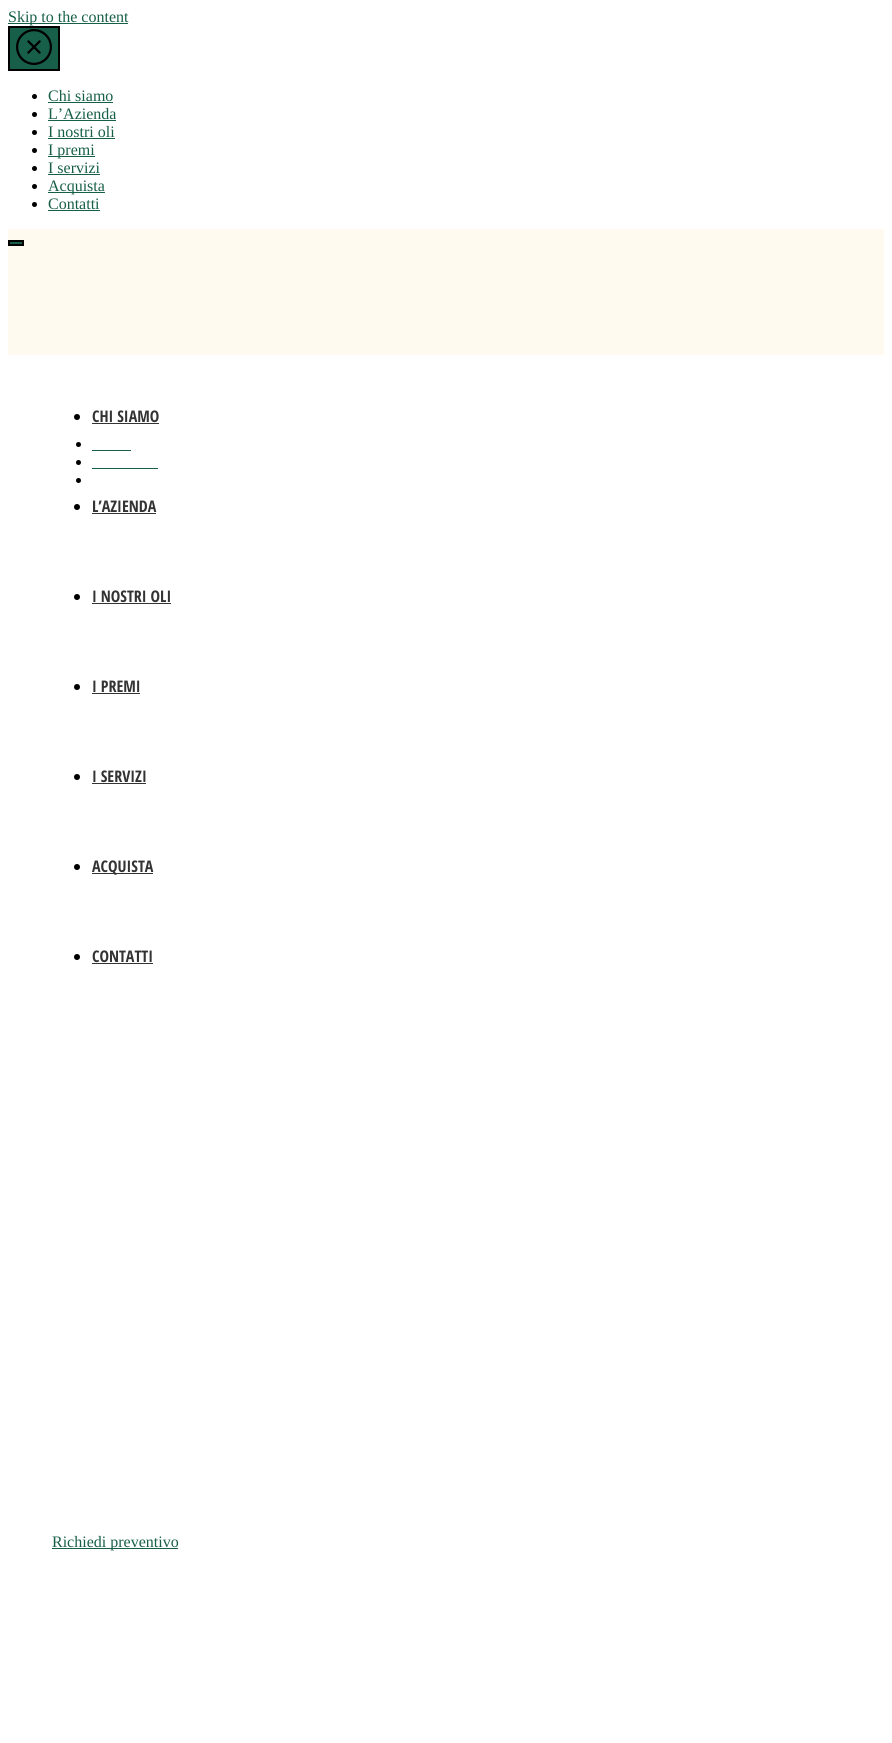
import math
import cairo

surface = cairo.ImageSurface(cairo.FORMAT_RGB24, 892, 1743)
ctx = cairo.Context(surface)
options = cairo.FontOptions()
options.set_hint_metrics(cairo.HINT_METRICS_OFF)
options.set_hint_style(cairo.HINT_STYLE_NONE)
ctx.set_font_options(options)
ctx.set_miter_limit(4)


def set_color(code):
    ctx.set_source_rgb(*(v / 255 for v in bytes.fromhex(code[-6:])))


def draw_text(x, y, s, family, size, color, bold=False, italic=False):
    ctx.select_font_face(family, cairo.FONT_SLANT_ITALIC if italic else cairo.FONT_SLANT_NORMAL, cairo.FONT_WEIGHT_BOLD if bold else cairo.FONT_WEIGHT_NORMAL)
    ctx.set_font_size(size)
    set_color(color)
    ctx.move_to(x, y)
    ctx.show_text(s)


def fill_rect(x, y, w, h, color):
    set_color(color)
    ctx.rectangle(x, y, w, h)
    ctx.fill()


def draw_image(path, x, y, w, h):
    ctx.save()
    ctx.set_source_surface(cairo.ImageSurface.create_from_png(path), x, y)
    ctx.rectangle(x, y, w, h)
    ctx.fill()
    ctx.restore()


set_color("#ffffff")
ctx.paint()
fill_rect(8, 23, 120, 1, "#175f48")
draw_text(8, 22, "Skip to the content", "Liberation Serif", 16, "#175f48")
ctx.rectangle(9, 27, 50, 43)
ctx.fill_preserve()
set_color("#000000")
ctx.stroke()
draw_image("assets/img1.png", 16, 29, 36, 36)
ctx.arc(34.5, 96.5, 2.5, 0, 2 * math.pi)
ctx.fill()
draw_text(48, 101, "Chi siamo", "Liberation Serif", 16, "#175f48")
fill_rect(48, 102, 65, 1, "#175f48")
set_color("#000000")
ctx.new_path()
ctx.arc(34.5, 114.5, 2.5, 0, 2 * math.pi)
ctx.fill()
draw_text(48, 119, "L’Azienda", "Liberation Serif", 16, "#175f48")
fill_rect(48, 120, 68, 1, "#175f48")
set_color("#000000")
ctx.new_path()
ctx.arc(34.5, 132.5, 2.5, 0, 2 * math.pi)
ctx.fill()
draw_text(48, 137, "I nostri oli", "Liberation Serif", 16, "#175f48")
fill_rect(48, 138, 67, 1, "#175f48")
set_color("#000000")
ctx.new_path()
ctx.arc(34.5, 150.5, 2.5, 0, 2 * math.pi)
ctx.fill()
fill_rect(48, 156, 47, 1, "#175f48")
draw_text(48, 155, "I premi", "Liberation Serif", 16, "#175f48")
set_color("#000000")
ctx.new_path()
ctx.arc(34.5, 168.5, 2.5, 0, 2 * math.pi)
ctx.fill()
draw_text(48, 173, "I servizi", "Liberation Serif", 16, "#175f48")
fill_rect(48, 174, 52, 1, "#175f48")
set_color("#000000")
ctx.new_path()
ctx.arc(34.5, 186.5, 2.5, 0, 2 * math.pi)
ctx.fill()
fill_rect(48, 192, 57, 1, "#175f48")
draw_text(48, 191, "Acquista", "Liberation Serif", 16, "#175f48")
set_color("#000000")
ctx.new_path()
ctx.arc(34.5, 204.5, 2.5, 0, 2 * math.pi)
ctx.fill()
draw_text(48, 209, "Contatti", "Liberation Serif", 16, "#175f48")
fill_rect(48, 210, 52, 1, "#175f48")
fill_rect(8, 229, 876, 126, "#fffaef")
set_color("#175f48")
ctx.rectangle(9, 241, 14, 4)
ctx.fill_preserve()
set_color("#000000")
ctx.stroke()
ctx.arc(77, 417, 3, 0, 2 * math.pi)
ctx.fill()
draw_text(92, 422, "CHI SIAMO", "Open Sans Condensed", 16, "#333333", bold=True)
fill_rect(92, 423, 67, 1, "#333333")
set_color("#000000")
ctx.new_path()
ctx.arc(77, 507, 3, 0, 2 * math.pi)
ctx.fill()
draw_text(92, 512, "L’AZIENDA", "Open Sans Condensed", 16, "#333333", bold=True)
fill_rect(92, 513, 64, 1, "#333333")
set_color("#000000")
ctx.new_path()
ctx.arc(77, 597, 3, 0, 2 * math.pi)
ctx.fill()
draw_text(92, 602, "I NOSTRI OLI", "Open Sans Condensed", 16, "#333333", bold=True)
fill_rect(92, 603, 79, 1, "#333333")
set_color("#000000")
ctx.new_path()
ctx.arc(77, 687, 3, 0, 2 * math.pi)
ctx.fill()
draw_text(92, 692, "I PREMI", "Open Sans Condensed", 16, "#333333", bold=True)
fill_rect(92, 693, 48, 1, "#333333")
set_color("#000000")
ctx.new_path()
ctx.arc(77, 777, 3, 0, 2 * math.pi)
ctx.fill()
draw_text(92, 782, "I SERVIZI", "Open Sans Condensed", 16, "#333333", bold=True)
fill_rect(92, 783, 54, 1, "#333333")
set_color("#000000")
ctx.new_path()
ctx.arc(77, 867, 3, 0, 2 * math.pi)
ctx.fill()
fill_rect(92, 873, 61, 1, "#333333")
draw_text(92, 872, "ACQUISTA", "Open Sans Condensed", 16, "#333333", bold=True)
set_color("#000000")
ctx.new_path()
ctx.arc(77, 957, 3, 0, 2 * math.pi)
ctx.fill()
draw_text(92, 962, "CONTATTI", "Open Sans Condensed", 16, "#333333", bold=True)
fill_rect(92, 963, 61, 1, "#333333")
set_color("#000000")
ctx.new_path()
ctx.arc(78.5, 444.5, 2.5, 0, 2 * math.pi)
ctx.fill()
fill_rect(92, 450, 39, 1, "#175f48")
set_color("#000000")
ctx.arc(78.5, 462.5, 2.5, 0, 2 * math.pi)
ctx.fill()
fill_rect(92, 468, 66, 1, "#175f48")
set_color("#000000")
ctx.arc(78.5, 480.5, 2.5, 0, 2 * math.pi)
ctx.fill()
fill_rect(52, 1548, 126, 1, "#175f48")
draw_text(52, 1547, "Richiedi preventivo", "Liberation Serif", 16, "#175f48")
surface.write_to_png("output.png")
